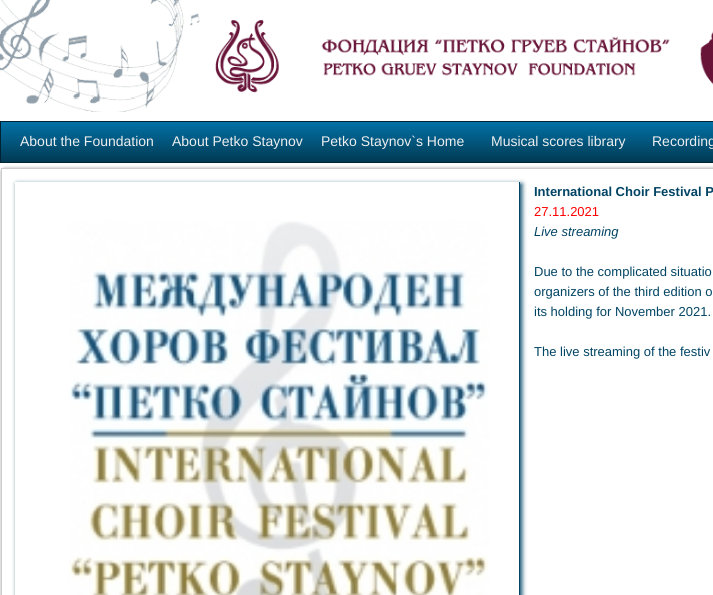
import math
import cairo

surface = cairo.ImageSurface(cairo.FORMAT_RGB24, 713, 595)
ctx = cairo.Context(surface)
options = cairo.FontOptions()
options.set_hint_metrics(cairo.HINT_METRICS_OFF)
options.set_hint_style(cairo.HINT_STYLE_NONE)
ctx.set_font_options(options)
ctx.set_miter_limit(4)


def set_color(code):
    ctx.set_source_rgb(*(v / 255 for v in bytes.fromhex(code[-6:])))


def draw_text(x, y, s, family, size, color, bold=False, italic=False):
    ctx.select_font_face(family, cairo.FONT_SLANT_ITALIC if italic else cairo.FONT_SLANT_NORMAL, cairo.FONT_WEIGHT_BOLD if bold else cairo.FONT_WEIGHT_NORMAL)
    ctx.set_font_size(size)
    set_color(color)
    ctx.move_to(x, y)
    ctx.show_text(s)


def fill_rect(x, y, w, h, color):
    set_color(color)
    ctx.rectangle(x, y, w, h)
    ctx.fill()


def rounded_rect(x, y, w, h, r):
    ctx.new_sub_path()
    for i, (u, v) in enumerate([(x + w - r, y + h - r), (x + r, y + h - r), (x + r, y + r), (x + w - r, y + r)]):
        ctx.arc(u, v, r, i * math.pi / 2, (i + 1) * math.pi / 2)
    ctx.close_path()


def draw_shadow(x, y, w, h, r, blur, alpha):
    ctx.push_group_with_content(cairo.CONTENT_ALPHA)
    ctx.set_operator(cairo.OPERATOR_SOURCE)
    for i in range(15, -16, -2):
        e = blur * i / 6
        if min(w, h) + 2 * e > 0:
            ctx.set_source_rgba(0, 0, 0, alpha * math.erfc((i - 1) / 8.5) / 2)
            rounded_rect(x - e, y - e, w + 2 * e, h + 2 * e, max(0, min(r + e + blur * .6, min(w, h) / 2 + e)))
            ctx.fill()
    ctx.mask(ctx.pop_group())


def draw_image(path, x, y, w, h):
    ctx.save()
    ctx.set_source_surface(cairo.ImageSurface.create_from_png(path), x, y)
    ctx.rectangle(x, y, w, h)
    ctx.fill()
    ctx.restore()


set_color("#ffffff")
ctx.paint()
draw_image("assets/img1.png", 0, 0, 713, 112)
gradient = cairo.LinearGradient(1, 122, 1, 162)
gradient.add_color_stop_rgba(0, 0.008, 0.447, 0.655, 1)
gradient.add_color_stop_rgba(1, 0.004, 0.224, 0.325, 1)
ctx.set_source(gradient)
ctx.rectangle(1, 122, 712, 40)
ctx.fill()
ctx.rectangle(0.5, 121.5, 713, 41)
set_color("#002232")
ctx.set_line_width(1)
ctx.stroke()
draw_text(20, 146, "About the Foundation", "Liberation Sans", 14, "#eeeeee")
draw_text(172, 146, "About Petko Staynov", "Liberation Sans", 14, "#eeeeee")
draw_text(321, 146, "Petko Staynov`s Home", "Liberation Sans", 14, "#eeeeee")
draw_text(491, 146, "Musical scores library", "Liberation Sans", 14, "#eeeeee")
draw_text(652, 146, "Recording", "Liberation Sans", 14, "#eeeeee")
ctx.save()
ctx.set_fill_rule(cairo.FILL_RULE_EVEN_ODD)
ctx.new_path()
ctx.move_to(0, 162)
ctx.line_to(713, 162)
ctx.line_to(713, 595)
ctx.line_to(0, 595)
ctx.close_path()
ctx.move_to(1, 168)
ctx.line_to(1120, 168)
ctx.line_to(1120, 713)
ctx.curve_to(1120, 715, 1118, 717, 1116, 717)
ctx.line_to(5, 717)
ctx.curve_to(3, 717, 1, 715, 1, 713)
ctx.close_path()
ctx.clip()
set_color("#aaaaaa")
draw_shadow(1, 168, 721, 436, 4, 1.5, 1)
ctx.restore()
ctx.rectangle(1.5, 168.5, 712, 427)
set_color("#cccccc")
ctx.stroke()
ctx.save()
ctx.set_fill_rule(cairo.FILL_RULE_EVEN_ODD)
ctx.new_path()
ctx.move_to(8, 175)
ctx.line_to(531, 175)
ctx.line_to(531, 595)
ctx.line_to(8, 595)
ctx.close_path()
ctx.move_to(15, 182)
ctx.line_to(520, 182)
ctx.line_to(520, 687)
ctx.line_to(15, 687)
ctx.close_path()
ctx.clip()
set_color("#014464")
draw_shadow(17, 184, 505, 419, 0, 2.5, 1)
ctx.restore()
draw_image("assets/img2.png", 69, 221, 420, 374)
fill_rect(519, 182, 1, 413, "#014464")
draw_text(534, 196, "International Choir Festival P", "Liberation Sans", 13, "#014464", bold=True)
draw_text(534, 216, "27.11.2021", "Liberation Sans", 13, "#ff0000")
draw_text(534, 236, "Live streaming", "Liberation Sans", 13, "#014464", italic=True)
draw_text(534, 276, "Due to the complicated situatio", "Liberation Sans", 13, "#014464")
draw_text(534, 296, "organizers of the third edition o", "Liberation Sans", 13, "#014464")
draw_text(534, 316, "its holding for November 2021.", "Liberation Sans", 13, "#014464")
draw_text(534, 356, "The live streaming of the festiv", "Liberation Sans", 13, "#014464")
surface.write_to_png("output.png")
